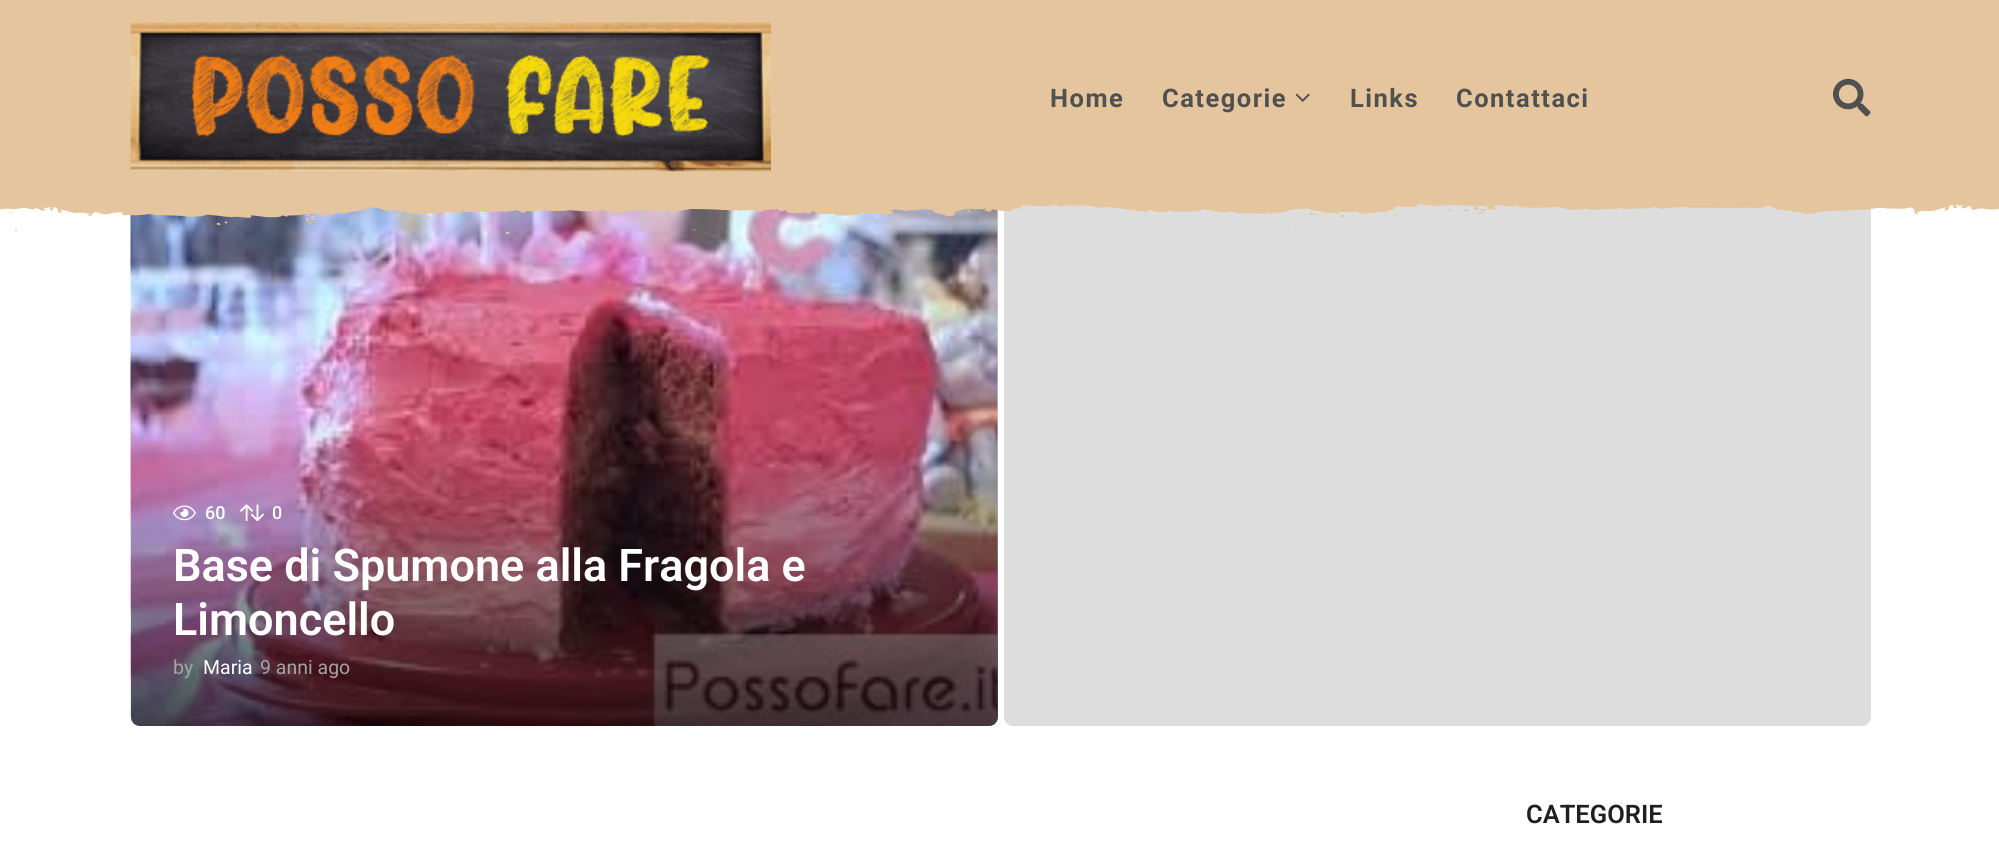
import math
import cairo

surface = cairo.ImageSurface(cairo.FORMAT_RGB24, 1999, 843)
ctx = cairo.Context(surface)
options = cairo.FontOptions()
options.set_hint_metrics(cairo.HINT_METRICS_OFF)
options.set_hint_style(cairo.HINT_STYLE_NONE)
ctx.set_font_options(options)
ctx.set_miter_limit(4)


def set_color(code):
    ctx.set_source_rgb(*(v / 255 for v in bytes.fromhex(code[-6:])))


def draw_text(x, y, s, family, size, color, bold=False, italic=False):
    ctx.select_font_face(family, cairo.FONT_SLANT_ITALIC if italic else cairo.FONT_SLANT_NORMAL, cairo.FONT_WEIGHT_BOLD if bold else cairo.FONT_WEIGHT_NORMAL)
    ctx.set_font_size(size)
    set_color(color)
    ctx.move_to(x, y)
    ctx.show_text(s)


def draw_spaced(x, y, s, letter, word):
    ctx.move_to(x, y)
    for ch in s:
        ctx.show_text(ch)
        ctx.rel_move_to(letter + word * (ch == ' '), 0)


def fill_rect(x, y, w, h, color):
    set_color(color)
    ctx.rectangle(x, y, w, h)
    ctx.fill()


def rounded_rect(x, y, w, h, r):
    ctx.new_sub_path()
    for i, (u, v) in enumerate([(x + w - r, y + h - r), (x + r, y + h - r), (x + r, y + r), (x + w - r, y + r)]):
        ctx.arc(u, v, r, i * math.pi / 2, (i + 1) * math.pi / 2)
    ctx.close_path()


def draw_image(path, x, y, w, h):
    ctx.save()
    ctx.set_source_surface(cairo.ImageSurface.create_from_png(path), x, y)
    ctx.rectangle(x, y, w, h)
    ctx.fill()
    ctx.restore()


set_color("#ffffff")
ctx.paint()
set_color("#dddddd")
rounded_rect(131, 126, 867, 600, 9)
ctx.fill()
rounded_rect(1004, 126, 867, 600, 9)
ctx.fill()
fill_rect(0, 0, 1999, 195, "#e5c59d")
draw_image("assets/img1.png", 130, 22, 641, 150)
ctx.select_font_face("Roboto", cairo.FONT_SLANT_NORMAL, cairo.FONT_WEIGHT_BOLD)
ctx.set_font_size(25.5)
set_color("#505050")
draw_spaced(1050, 107, "Home", 1.5, 0)
draw_spaced(1162, 107, "Categorie", 1.5, 0)
draw_image("assets/img2.png", 1295, 93, 15, 9)
draw_spaced(1350, 107, "Links", 1.5, 0)
draw_spaced(1456, 107, "Contattaci", 1.5, 0)
draw_image("assets/img3.png", 1833, 78, 38, 39)
draw_image("assets/img5.png", 130, 207, 868, 519)
draw_image("assets/img4.png", 0, 195, 1999, 39)
gradient = cairo.LinearGradient(564, 426, 564, 726)
gradient.add_color_stop_rgba(0, 0, 0, 0, 0)
gradient.add_color_stop_rgba(1, 0, 0, 0, 0.7)
ctx.set_source(gradient)
ctx.new_path()
ctx.move_to(131, 426)
ctx.line_to(998, 426)
ctx.line_to(998, 717)
ctx.curve_to(998, 722, 994, 726, 989, 726)
ctx.line_to(140, 726)
ctx.curve_to(135, 726, 131, 722, 131, 717)
ctx.close_path()
ctx.fill()
draw_image("assets/img6.png", 173, 505, 23, 16)
draw_text(205, 519, "60", "Roboto Medium", 18, "#ffffff")
draw_image("assets/img7.png", 240, 504, 24, 17)
draw_text(272, 519, "0", "Roboto Medium", 18, "#ffffff")
draw_text(173, 581, "Base di Spumone alla Fragola e", "Roboto SemiBold", 45, "#ffffff")
draw_text(173, 635, "Limoncello", "Roboto SemiBold", 45, "#ffffff")
draw_text(173, 674, "by", "Roboto", 19.5, "#a3a3a3")
draw_text(203, 674, "Maria", "Roboto", 19.5, "#ffffff")
draw_text(260, 674, "9 anni ago", "Roboto", 19.5, "#a3a3a3")
draw_text(1526, 823, "CATEGORIE", "Roboto SemiBold", 25.5, "#1f1f1f")
surface.write_to_png("output.png")
